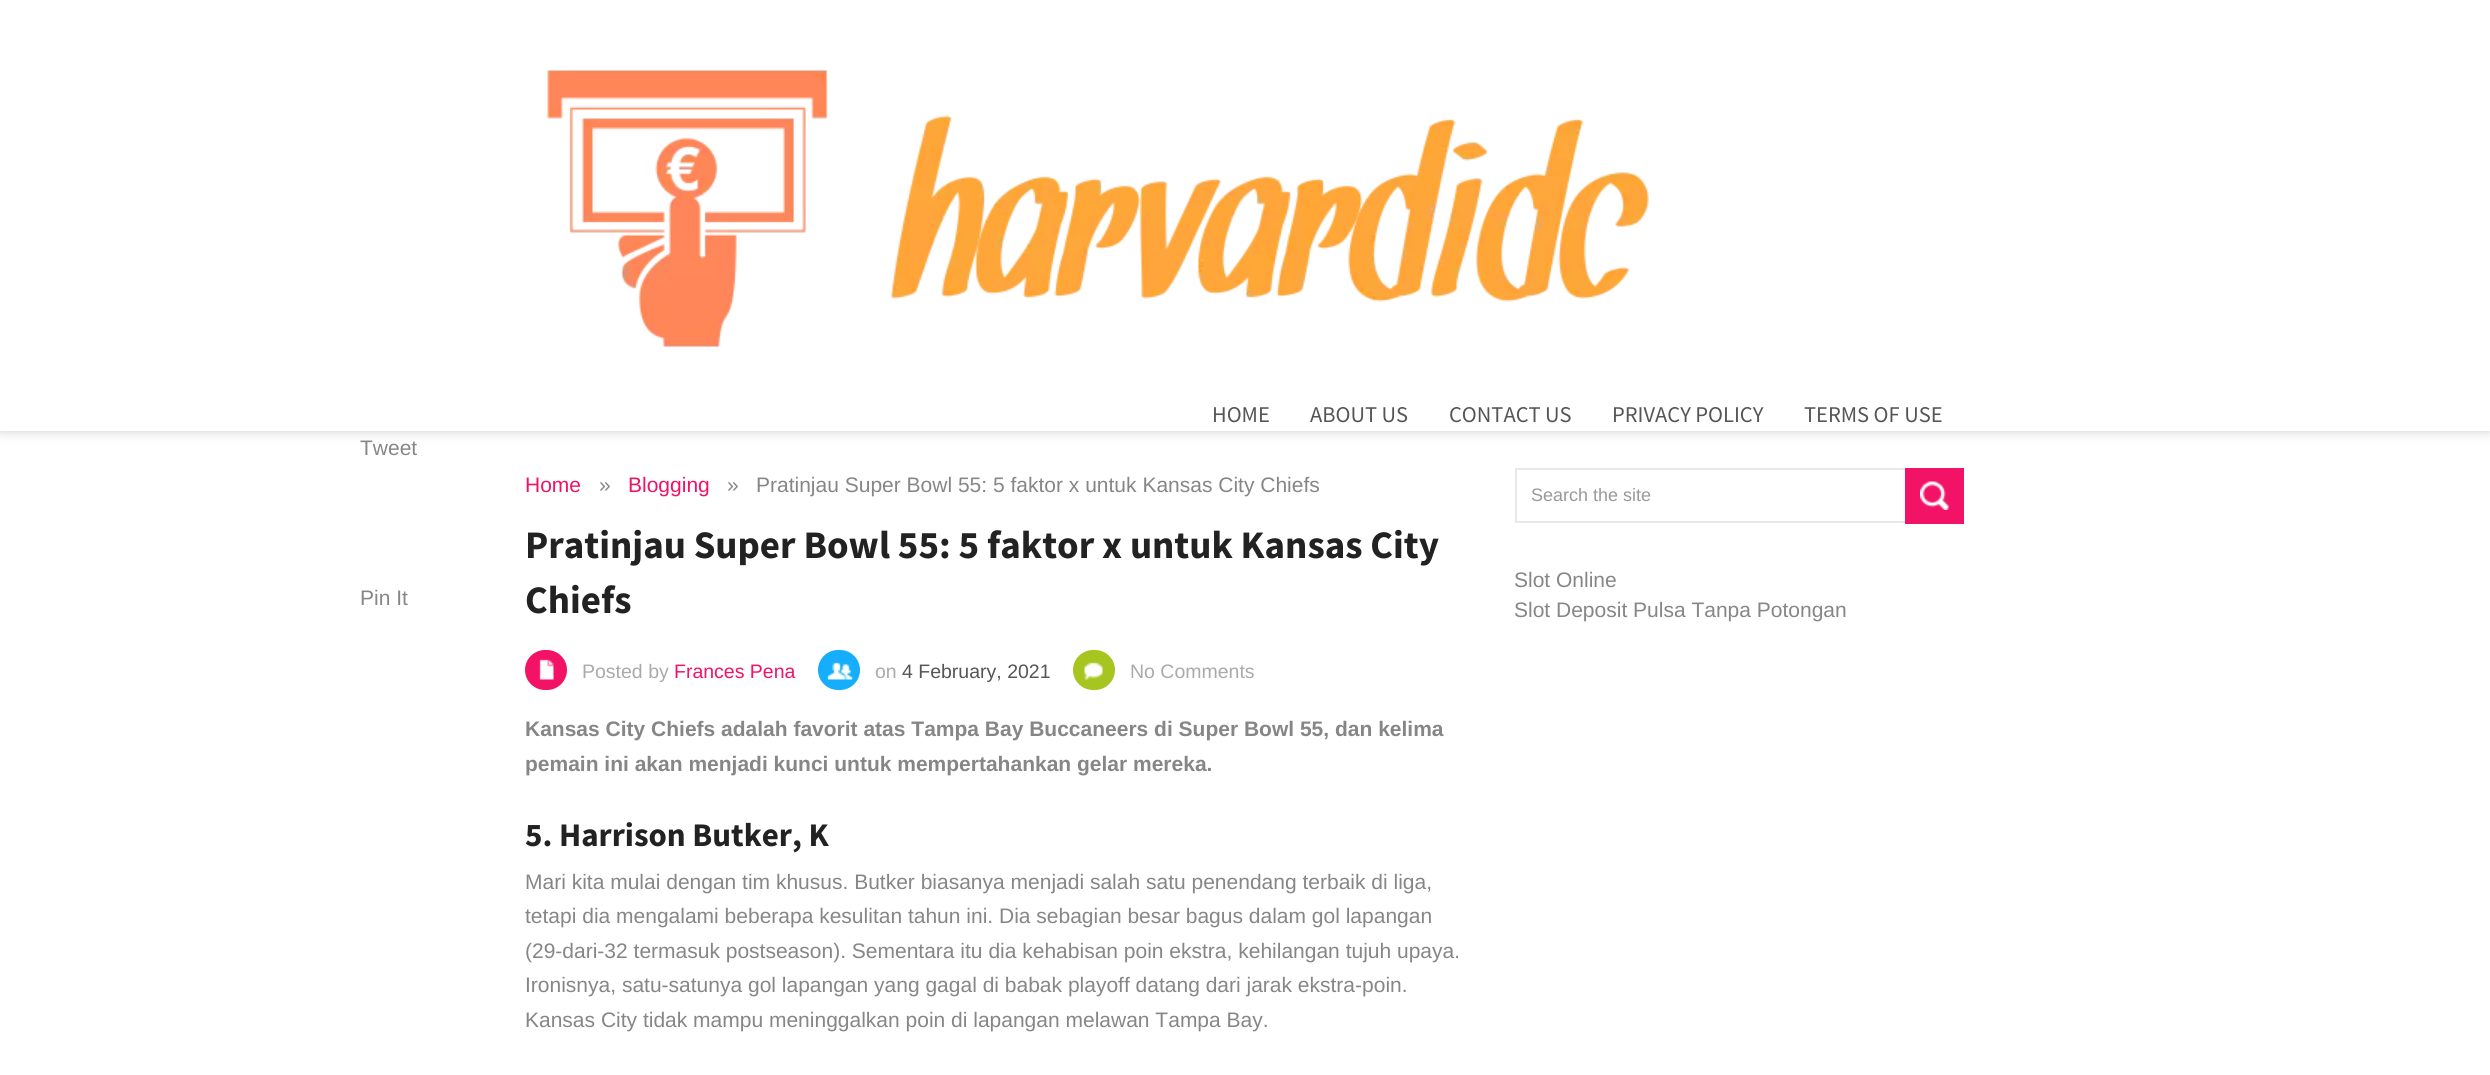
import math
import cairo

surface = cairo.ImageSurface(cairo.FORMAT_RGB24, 2490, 1075)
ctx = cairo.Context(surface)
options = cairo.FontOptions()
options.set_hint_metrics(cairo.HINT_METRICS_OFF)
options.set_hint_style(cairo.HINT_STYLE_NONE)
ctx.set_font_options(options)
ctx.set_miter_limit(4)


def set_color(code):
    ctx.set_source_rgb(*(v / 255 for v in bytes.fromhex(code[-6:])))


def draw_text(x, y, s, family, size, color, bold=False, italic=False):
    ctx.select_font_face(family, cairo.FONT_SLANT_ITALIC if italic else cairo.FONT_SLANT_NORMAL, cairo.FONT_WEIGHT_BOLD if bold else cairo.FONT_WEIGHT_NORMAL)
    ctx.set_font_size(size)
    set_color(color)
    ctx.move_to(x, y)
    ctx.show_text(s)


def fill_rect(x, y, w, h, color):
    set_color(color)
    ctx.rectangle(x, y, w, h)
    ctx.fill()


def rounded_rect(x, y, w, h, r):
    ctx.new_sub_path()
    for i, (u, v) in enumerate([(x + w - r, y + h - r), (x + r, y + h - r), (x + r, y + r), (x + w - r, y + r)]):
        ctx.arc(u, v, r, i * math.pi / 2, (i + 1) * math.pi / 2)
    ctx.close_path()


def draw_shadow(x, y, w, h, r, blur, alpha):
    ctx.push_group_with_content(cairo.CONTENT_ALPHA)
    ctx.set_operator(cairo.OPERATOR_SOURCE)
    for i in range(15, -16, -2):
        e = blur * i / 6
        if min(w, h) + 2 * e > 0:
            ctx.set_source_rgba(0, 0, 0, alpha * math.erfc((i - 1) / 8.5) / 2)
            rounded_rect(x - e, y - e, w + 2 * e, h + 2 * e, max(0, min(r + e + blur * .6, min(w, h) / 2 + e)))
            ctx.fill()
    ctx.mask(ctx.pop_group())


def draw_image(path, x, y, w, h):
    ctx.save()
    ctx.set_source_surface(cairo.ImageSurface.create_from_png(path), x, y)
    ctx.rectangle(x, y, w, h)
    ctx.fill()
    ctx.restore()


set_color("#ffffff")
ctx.paint()
ctx.save()
ctx.set_fill_rule(cairo.FILL_RULE_EVEN_ODD)
ctx.new_path()
ctx.move_to(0, 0)
ctx.line_to(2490, 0)
ctx.line_to(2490, 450)
ctx.line_to(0, 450)
ctx.close_path()
ctx.move_to(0, 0)
ctx.line_to(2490, 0)
ctx.line_to(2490, 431)
ctx.line_to(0, 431)
ctx.close_path()
ctx.clip()
set_color("#cfcfcf")
draw_shadow(0, 0, 2490, 431, 0, 6, 1)
ctx.restore()
draw_image("assets/img1.png", 547, 70, 1102, 277)
draw_text(1212, 422, "HOME", "Source Sans Pro", 22.5, "#555555")
draw_text(1310, 422, "ABOUT US", "Source Sans Pro", 22.5, "#555555")
draw_text(1449, 422, "CONTACT US", "Source Sans Pro", 22.5, "#555555")
draw_text(1612, 422, "PRIVACY POLICY", "Source Sans Pro", 22.5, "#555555")
draw_text(1804, 422, "TERMS OF USE", "Source Sans Pro", 22.5, "#555555")
draw_text(360, 455, "Tweet", "Liberation Sans", 21, "#868686")
draw_text(360, 605, "Pin It", "Liberation Sans", 21, "#868686")
draw_text(525, 736, "Kansas City Chiefs adalah favorit atas Tampa Bay Buccaneers di Super Bowl 55, dan kelima", "Liberation Sans", 21, "#868686", bold=True)
draw_text(525, 771, "pemain ini akan menjadi kunci untuk mempertahankan gelar mereka.", "Liberation Sans", 21, "#868686", bold=True)
draw_text(525, 846, "5. Harrison Butker, K", "Source Sans Pro", 33, "#222222", bold=True)
draw_text(525, 889, "Mari kita mulai dengan tim khusus. Butker biasanya menjadi salah satu penendang terbaik di liga,", "Liberation Sans", 21, "#868686")
draw_text(525, 923, "tetapi dia mengalami beberapa kesulitan tahun ini. Dia sebagian besar bagus dalam gol lapangan", "Liberation Sans", 21, "#868686")
draw_text(525, 958, "(29-dari-32 termasuk postseason). Sementara itu dia kehabisan poin ekstra, kehilangan tujuh upaya.", "Liberation Sans", 21, "#868686")
draw_text(525, 992, "Ironisnya, satu-satunya gol lapangan yang gagal di babak playoff datang dari jarak ekstra-poin.", "Liberation Sans", 21, "#868686")
draw_text(525, 1027, "Kansas City tidak mampu meninggalkan poin di lapangan melawan Tampa Bay.", "Liberation Sans", 21, "#868686")
draw_text(525, 492, "Home", "Liberation Sans", 21, "#f21366")
draw_text(599, 492, "»", "Liberation Sans", 21, "#868686")
draw_text(628, 492, "Blogging", "Liberation Sans", 21, "#f21366")
draw_text(727, 492, "»", "Liberation Sans", 21, "#868686")
draw_text(756, 492, "Pratinjau Super Bowl 55: 5 faktor x untuk Kansas City Chiefs", "Liberation Sans", 21, "#868686")
draw_text(525, 558, "Pratinjau Super Bowl 55: 5 faktor x untuk Kansas City", "Source Sans Pro", 39, "#222222", bold=True)
draw_text(525, 613, "Chiefs", "Source Sans Pro", 39, "#222222", bold=True)
set_color("#f21366")
rounded_rect(525, 650, 42, 40, 20)
ctx.fill()
draw_image("assets/img2.png", 539, 659, 15, 21)
draw_text(582, 678, "Posted by", "Liberation Sans", 19.5, "#aaaaaa")
draw_text(674, 678, "Frances Pena", "Liberation Sans", 19.5, "#f21366")
set_color("#16aefc")
rounded_rect(818, 650, 42, 40, 20)
ctx.fill()
draw_image("assets/img3.png", 827, 662, 26, 18)
draw_text(875, 678, "on", "Liberation Sans", 19.5, "#aaaaaa")
draw_text(902, 678, "4 February, 2021", "Liberation Sans", 19.5, "#555555")
set_color("#a7c520")
rounded_rect(1073, 650, 42, 40, 20)
ctx.fill()
draw_image("assets/img4.png", 1084, 662, 19, 18)
draw_text(1130, 678, "No Comments", "Liberation Sans", 19.5, "#aaaaaa")
fill_rect(1515, 468, 390, 2, "#e8e8e8")
fill_rect(1515, 521, 390, 2, "#e8e8e8")
fill_rect(1515, 468, 2, 54, "#e8e8e8")
draw_text(1531, 501, "Search the site", "Liberation Sans", 18, "#999999")
fill_rect(1905, 468, 59, 56, "#f21366")
draw_image("assets/img5.png", 1920, 481, 29, 29)
draw_text(1514, 587, "Slot Online", "Liberation Sans", 21, "#868686")
draw_text(1514, 617, "Slot Deposit Pulsa Tanpa Potongan", "Liberation Sans", 21, "#868686")
surface.write_to_png("output.png")
